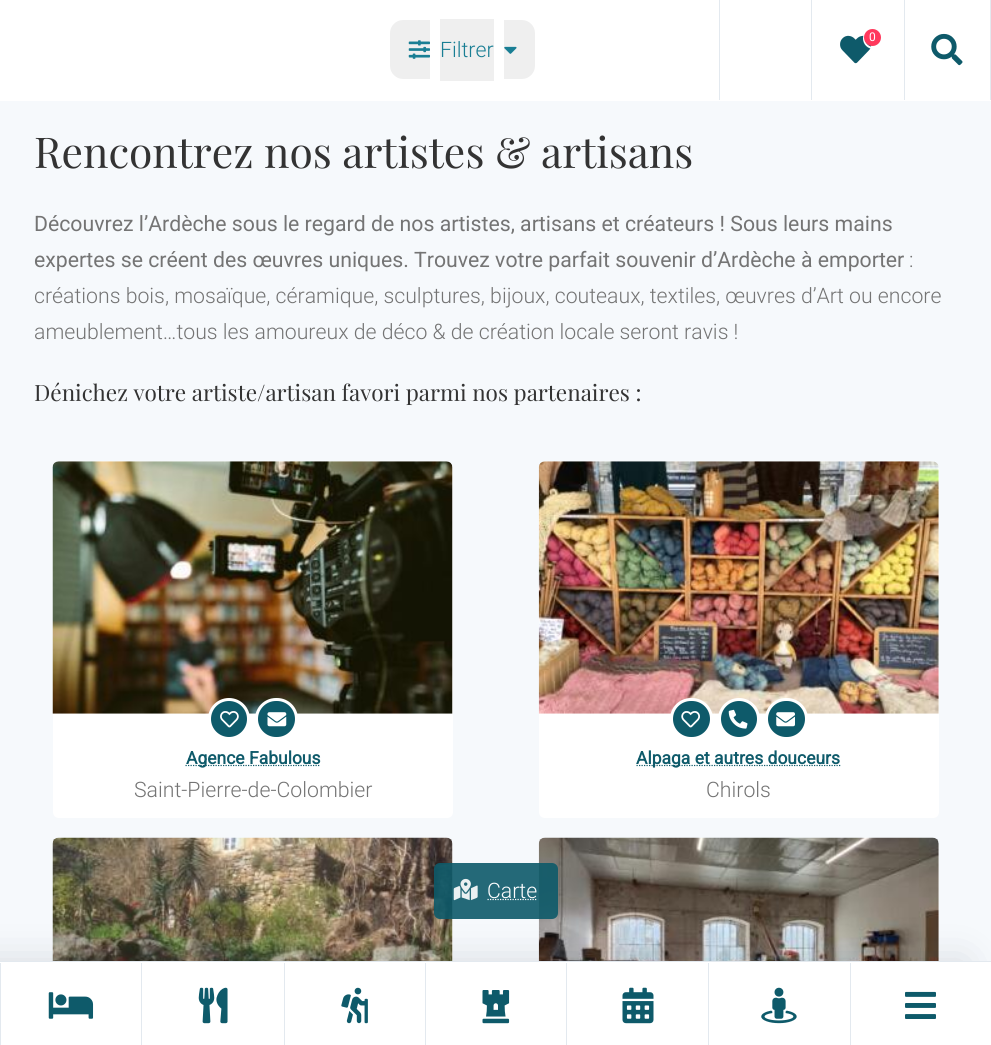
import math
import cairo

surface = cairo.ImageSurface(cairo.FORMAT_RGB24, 991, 1045)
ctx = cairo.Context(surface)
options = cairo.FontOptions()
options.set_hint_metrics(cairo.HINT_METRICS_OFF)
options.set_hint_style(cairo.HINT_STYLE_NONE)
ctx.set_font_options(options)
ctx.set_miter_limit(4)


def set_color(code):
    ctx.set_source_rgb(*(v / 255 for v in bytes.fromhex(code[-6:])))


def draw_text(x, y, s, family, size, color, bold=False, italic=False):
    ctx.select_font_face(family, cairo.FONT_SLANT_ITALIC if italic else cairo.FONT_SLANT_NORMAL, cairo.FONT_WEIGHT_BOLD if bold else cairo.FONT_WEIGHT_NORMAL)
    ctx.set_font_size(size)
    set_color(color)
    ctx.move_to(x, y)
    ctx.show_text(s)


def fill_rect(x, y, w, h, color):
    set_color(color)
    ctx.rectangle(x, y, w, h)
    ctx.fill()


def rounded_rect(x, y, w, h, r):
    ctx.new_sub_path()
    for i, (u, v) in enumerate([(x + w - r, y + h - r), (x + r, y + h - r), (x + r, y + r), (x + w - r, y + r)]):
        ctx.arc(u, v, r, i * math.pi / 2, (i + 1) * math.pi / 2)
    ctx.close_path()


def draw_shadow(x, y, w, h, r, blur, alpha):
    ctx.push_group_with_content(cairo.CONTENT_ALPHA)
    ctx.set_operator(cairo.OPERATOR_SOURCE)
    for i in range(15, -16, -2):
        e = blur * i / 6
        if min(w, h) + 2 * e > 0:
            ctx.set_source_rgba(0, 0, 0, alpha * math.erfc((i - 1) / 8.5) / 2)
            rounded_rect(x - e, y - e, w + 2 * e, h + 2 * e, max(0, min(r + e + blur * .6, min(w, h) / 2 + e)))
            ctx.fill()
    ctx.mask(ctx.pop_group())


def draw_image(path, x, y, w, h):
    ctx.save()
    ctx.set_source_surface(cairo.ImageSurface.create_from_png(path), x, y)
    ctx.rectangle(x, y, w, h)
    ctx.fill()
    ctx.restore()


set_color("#ffffff")
ctx.paint()
fill_rect(719, 0, 1, 100, "#e3e9ef")
fill_rect(811, 0, 1, 100, "#e3e9ef")
draw_image("assets/img1.png", 840, 35, 32, 29)
ctx.arc(873.5, 38.5, 9.5, 0, 2 * math.pi)
set_color("#ffffff")
ctx.stroke()
set_color("#ff385c")
ctx.arc(872.5, 37.5, 8.5, 0, 2 * math.pi)
ctx.fill()
draw_text(869, 41, "0", "Roboto", 12, "#fefeff")
fill_rect(990, 0, 1, 100, "#e3e9ef")
fill_rect(904, 0, 1, 100, "#e3e9ef")
draw_image("assets/img2.png", 931, 33, 32, 33)
set_color("#efefef")
ctx.new_path()
ctx.move_to(403, 20)
ctx.line_to(430, 20)
ctx.line_to(430, 79)
ctx.line_to(403, 79)
ctx.curve_to(396, 79, 390, 73, 390, 66)
ctx.line_to(390, 33)
ctx.curve_to(390, 26, 396, 20, 403, 20)
ctx.close_path()
ctx.fill()
fill_rect(440, 19, 54, 62, "#efefef")
ctx.new_path()
ctx.move_to(504, 20)
ctx.line_to(522, 20)
ctx.curve_to(529, 20, 535, 26, 535, 33)
ctx.line_to(535, 66)
ctx.curve_to(535, 73, 529, 79, 522, 79)
ctx.line_to(504, 79)
ctx.close_path()
ctx.fill()
draw_image("assets/img3.png", 408, 40, 22, 19)
draw_text(440, 57, "Filtrer", "Roboto Light", 21.25, "#197e94")
draw_image("assets/img4.png", 504, 46, 13, 8)
fill_rect(0, 101, 991, 860, "#f6f9fc")
draw_text(34, 168, "Rencontrez nos artistes & artisans", "Playfair Display", 42.5, "#333333")
draw_text(34, 231, "Découvrez l’Ardèche sous le regard de nos artistes, artisans et créateurs ! Sous leurs mains", "Roboto", 21.25, "#747474")
draw_text(34, 267, "expertes se créent des œuvres uniques. Trouvez votre parfait souvenir d’Ardèche à emporter", "Roboto", 21.25, "#747474")
draw_text(909, 267, ":", "Roboto Light", 21.25, "#747474")
draw_text(34, 303, "créations bois, mosaïque, céramique, sculptures, bijoux, couteaux, textiles, œuvres d’Art ou encore", "Roboto Light", 21.25, "#747474")
draw_text(34, 339, "ameublement…tous les amoureux de déco & de création locale seront ravis !", "Roboto Light", 21.25, "#747474")
draw_text(34, 401, "Dénichez votre artiste/artisan favori parmi nos partenaires :", "Playfair Display", 22.5, "#333333")
set_color("#ffffff")
rounded_rect(53, 461, 400, 357, 9)
ctx.fill()
draw_image("assets/img5.png", 52, 461, 401, 253)
ctx.new_path()
ctx.move_to(53, 714)
ctx.line_to(453, 714)
ctx.line_to(453, 812)
ctx.curve_to(453, 815.5, 450.5, 818, 447, 818)
ctx.line_to(59, 818)
ctx.curve_to(55.5, 818, 53, 815.5, 53, 812)
ctx.close_path()
ctx.fill()
set_color("#0e5a6a")
ctx.arc(229, 719, 19.5, 0, 2 * math.pi)
ctx.fill_preserve()
set_color("#ffffff")
ctx.set_line_width(3)
ctx.stroke()
draw_image("assets/img6.png", 220, 711, 19, 17)
set_color("#0e5a6a")
rounded_rect(256.5, 699.5, 40, 39, 19.5)
ctx.fill_preserve()
set_color("#ffffff")
ctx.stroke()
draw_image("assets/img7.png", 267, 712, 20, 15)
ctx.new_path()
ctx.move_to(185.5, 765.5)
ctx.line_to(320, 765.5)
set_color("#0e5a6a")
ctx.set_line_width(1.2)
ctx.set_dash([1.25, 1.25])
ctx.stroke()
draw_text(186, 764, "Agence Fabulous", "Roboto", 17.5, "#0e5a6a", bold=True)
draw_text(134, 797, "Saint-Pierre-de-Colombier", "Roboto Light", 21.25, "#747474")
set_color("#ffffff")
rounded_rect(539, 461, 400, 357, 9)
ctx.fill()
draw_image("assets/img8.png", 538, 461, 401, 253)
ctx.new_path()
ctx.move_to(539, 714)
ctx.line_to(939, 714)
ctx.line_to(939, 812)
ctx.curve_to(939, 815.5, 936.5, 818, 933, 818)
ctx.line_to(545, 818)
ctx.curve_to(541.5, 818, 539, 815.5, 539, 812)
ctx.close_path()
ctx.fill()
set_color("#0e5a6a")
rounded_rect(671.5, 699.5, 40, 39, 19.5)
ctx.fill_preserve()
set_color("#ffffff")
ctx.set_line_width(3)
ctx.set_dash([])
ctx.stroke()
draw_image("assets/img9.png", 681, 711, 19, 17)
set_color("#0e5a6a")
ctx.arc(739, 719, 19.5, 0, 2 * math.pi)
ctx.fill_preserve()
set_color("#ffffff")
ctx.stroke()
draw_image("assets/img10.png", 728, 709, 20, 20)
set_color("#0e5a6a")
rounded_rect(766.5, 699.5, 40, 39, 19.5)
ctx.fill_preserve()
set_color("#ffffff")
ctx.stroke()
draw_image("assets/img11.png", 776, 712, 19, 15)
ctx.new_path()
ctx.move_to(636.5, 765.5)
ctx.line_to(840.5, 765.5)
set_color("#0e5a6a")
ctx.set_line_width(1.2)
ctx.set_dash([1.25, 1.25])
ctx.stroke()
draw_text(636, 764, "Alpaga et autres douceurs", "Roboto", 17.5, "#0e5a6a", bold=True)
draw_text(706, 797, "Chirols", "Roboto Light", 21.25, "#747474")
set_color("#ffffff")
rounded_rect(53, 838, 400, 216, 9)
ctx.fill()
draw_image("assets/img12.png", 52, 837, 401, 124)
rounded_rect(539, 838, 400, 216, 9)
ctx.fill()
draw_image("assets/img13.png", 538, 837, 401, 124)
set_color("#2b3445")
draw_shadow(-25, 961, 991, 84, 0, 20, 0.15)
fill_rect(0, 962, 991, 83, "#ffffff")
fill_rect(0, 961, 991, 1, "#e3e9ef")
ctx.set_source_rgba(0.055, 0.353, 0.416, 0.9)
rounded_rect(434, 863, 124, 56, 6)
ctx.fill()
draw_image("assets/img14.png", 453, 878, 25, 23)
ctx.new_path()
ctx.move_to(487.5, 899.5)
ctx.line_to(537.5, 899.5)
set_color("#fefeff")
ctx.stroke()
draw_text(487, 898, "Carte", "Roboto Light", 21.25, "#fefeff")
fill_rect(0, 963, 1, 82, "#e3e9ef")
draw_image("assets/img15.png", 48, 992, 46, 27)
fill_rect(141, 963, 1, 82, "#e3e9ef")
draw_image("assets/img16.png", 198, 987, 30, 37)
fill_rect(284, 963, 1, 82, "#e3e9ef")
draw_image("assets/img17.png", 341, 987, 27, 37)
fill_rect(425, 963, 1, 82, "#e3e9ef")
draw_image("assets/img18.png", 482, 990, 28, 34)
fill_rect(566, 963, 1, 82, "#e3e9ef")
draw_image("assets/img19.png", 622, 987, 32, 37)
fill_rect(708, 963, 1, 82, "#e3e9ef")
draw_image("assets/img20.png", 761, 987, 36, 37)
fill_rect(850, 963, 1, 82, "#e3e9ef")
draw_image("assets/img21.png", 905, 991, 31, 28)
surface.write_to_png("output.png")
